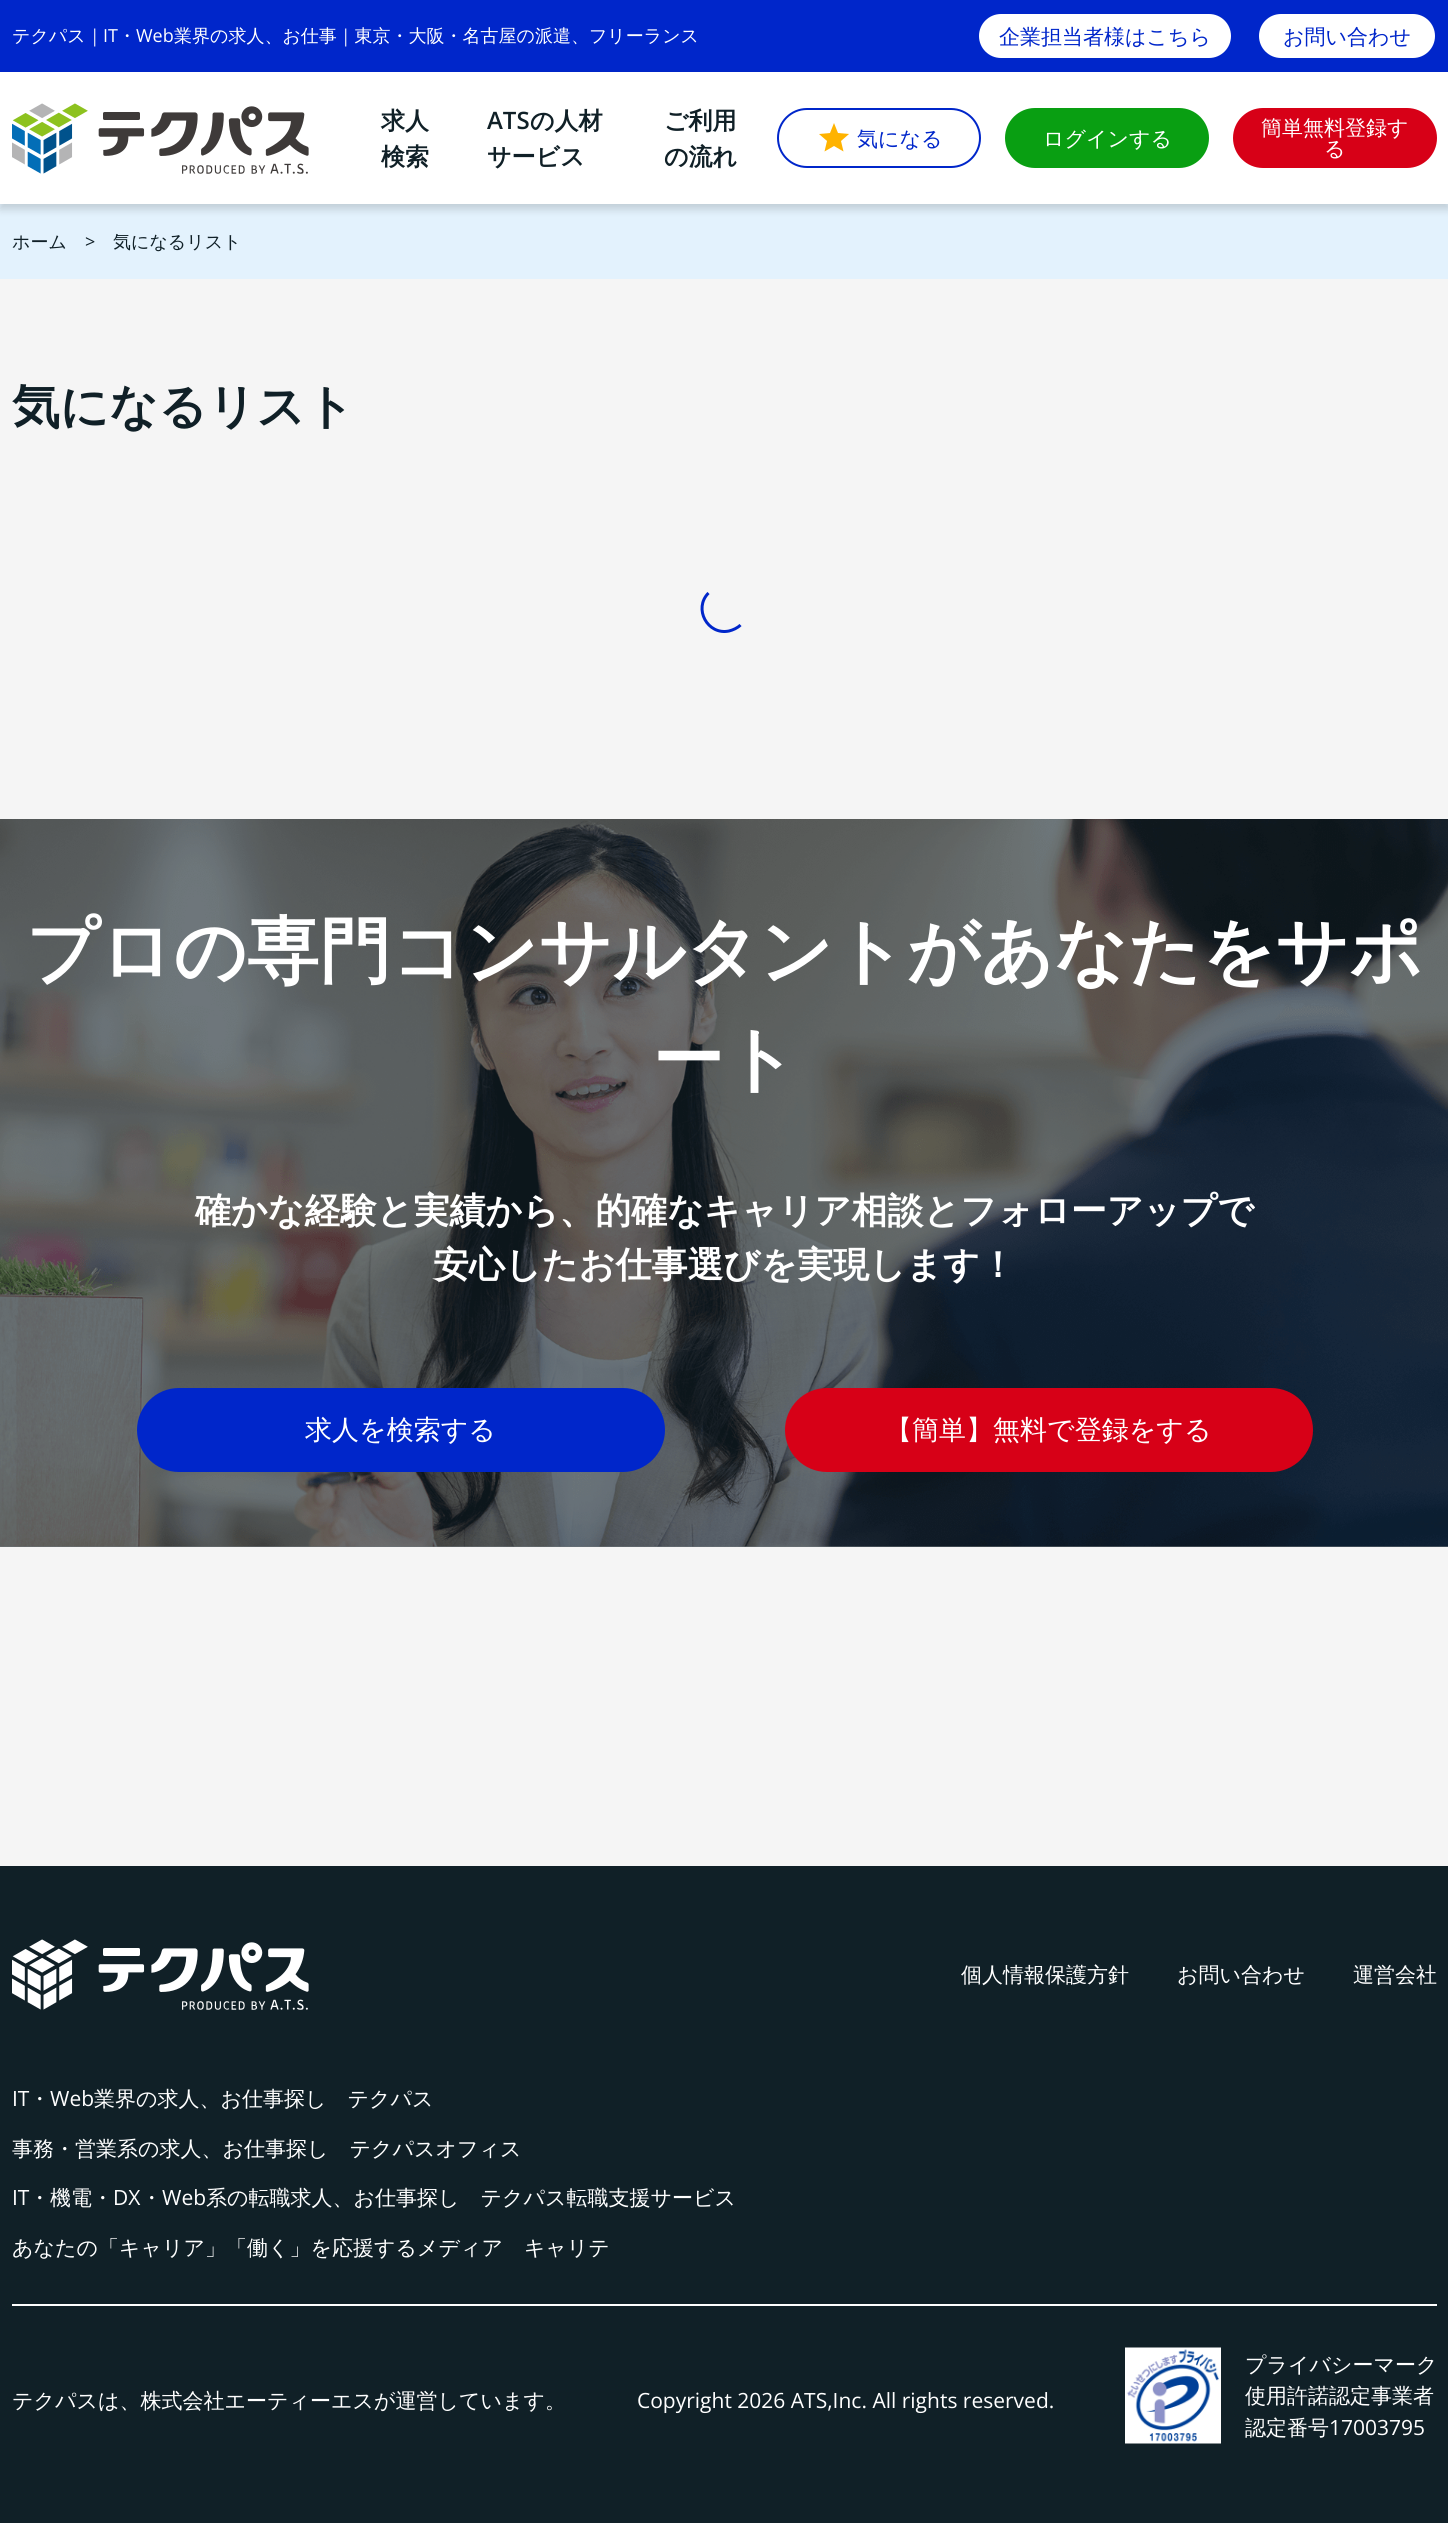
import math
import cairo

surface = cairo.ImageSurface(cairo.FORMAT_RGB24, 1448, 2523)
ctx = cairo.Context(surface)
options = cairo.FontOptions()
options.set_hint_metrics(cairo.HINT_METRICS_OFF)
options.set_hint_style(cairo.HINT_STYLE_NONE)
ctx.set_font_options(options)
ctx.set_miter_limit(4)


def set_color(code):
    ctx.set_source_rgb(*(v / 255 for v in bytes.fromhex(code[-6:])))


def draw_text(x, y, s, family, size, color, bold=False, italic=False):
    ctx.select_font_face(family, cairo.FONT_SLANT_ITALIC if italic else cairo.FONT_SLANT_NORMAL, cairo.FONT_WEIGHT_BOLD if bold else cairo.FONT_WEIGHT_NORMAL)
    ctx.set_font_size(size)
    set_color(color)
    ctx.move_to(x, y)
    ctx.show_text(s)


def fill_rect(x, y, w, h, color):
    set_color(color)
    ctx.rectangle(x, y, w, h)
    ctx.fill()


def rounded_rect(x, y, w, h, r):
    ctx.new_sub_path()
    for i, (u, v) in enumerate([(x + w - r, y + h - r), (x + r, y + h - r), (x + r, y + r), (x + w - r, y + r)]):
        ctx.arc(u, v, r, i * math.pi / 2, (i + 1) * math.pi / 2)
    ctx.close_path()


def draw_shadow(x, y, w, h, r, blur, alpha):
    ctx.push_group_with_content(cairo.CONTENT_ALPHA)
    ctx.set_operator(cairo.OPERATOR_SOURCE)
    for i in range(15, -16, -2):
        e = blur * i / 6
        if min(w, h) + 2 * e > 0:
            ctx.set_source_rgba(0, 0, 0, alpha * math.erfc((i - 1) / 8.5) / 2)
            rounded_rect(x - e, y - e, w + 2 * e, h + 2 * e, max(0, min(r + e + blur * .6, min(w, h) / 2 + e)))
            ctx.fill()
    ctx.mask(ctx.pop_group())


def draw_image(path, x, y, w, h):
    ctx.save()
    ctx.set_source_surface(cairo.ImageSurface.create_from_png(path), x, y)
    ctx.rectangle(x, y, w, h)
    ctx.fill()
    ctx.restore()


set_color("#f5f5f5")
ctx.paint()
fill_rect(0, 1546, 1448, 1, "#6c7579")
fill_rect(0, 0, 1448, 72, "#0026ca")
draw_text(12, 42, "テクパス｜", "WenQuanYi Zen Hei Medium", 18, "#ffffff")
draw_text(103, 42, "IT", "Open Sans", 18, "#ffffff")
draw_text(118, 42, "・", "WenQuanYi Zen Hei Medium", 18, "#ffffff")
draw_text(136, 42, "Web", "Open Sans", 18, "#ffffff")
draw_text(174, 42, "業界の求人、お仕事｜東京・大阪・名古屋の派遣、フリーランス", "WenQuanYi Zen Hei Medium", 18, "#ffffff")
rounded_rect(978, 13, 254, 46, 23)
ctx.fill_preserve()
set_color("#0026ca")
ctx.stroke()
draw_text(999, 44, "企業担当者様はこちら", "WenQuanYi Zen Hei Medium", 21, "#0026ca")
set_color("#ffffff")
rounded_rect(1258, 13, 178, 46, 23)
ctx.fill_preserve()
set_color("#0026ca")
ctx.stroke()
draw_text(1283, 44, "お問い合わせ", "WenQuanYi Zen Hei Medium", 21, "#0026ca")
fill_rect(0, 204, 1448, 75, "#e3f2fd")
set_color("#000000")
draw_shadow(0, 77, 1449, 132, 0, 4.5, 0.16)
fill_rect(0, 72, 1448, 132, "#ffffff")
draw_image("assets/img1.png", 12, 103, 297, 71)
draw_text(381, 129, "求人", "WenQuanYi Zen Hei", 24, "#102027", bold=True)
draw_text(381, 165, "検索", "WenQuanYi Zen Hei", 24, "#102027", bold=True)
draw_text(487, 129, "ATS", "Open Sans SemiBold", 24, "#102027")
draw_text(530, 129, "の人材", "WenQuanYi Zen Hei", 24, "#102027", bold=True)
draw_text(487, 165, "サービス", "WenQuanYi Zen Hei", 24, "#102027", bold=True)
draw_text(664, 129, "ご利用", "WenQuanYi Zen Hei", 24, "#102027", bold=True)
draw_text(664, 165, "の流れ", "WenQuanYi Zen Hei", 24, "#102027", bold=True)
rounded_rect(778, 109, 202, 58, 29)
set_color("#0026ca")
ctx.stroke()
set_color("#ffb300")
ctx.new_path()
ctx.move_to(834, 146)
ctx.line_to(843.5, 151.5)
ctx.line_to(841, 141)
ctx.line_to(849, 134)
ctx.line_to(838, 133)
ctx.line_to(834, 123)
ctx.line_to(830, 133)
ctx.line_to(819, 134)
ctx.line_to(827, 141)
ctx.line_to(824.5, 151.5)
ctx.close_path()
ctx.fill()
draw_text(857, 146, "気になる", "WenQuanYi Zen Hei Medium", 21, "#0026ca")
set_color("#099f12")
rounded_rect(1006, 109, 202, 58, 29)
ctx.fill_preserve()
ctx.stroke()
draw_text(1043, 146, "ログインする", "WenQuanYi Zen Hei Medium", 21, "#ffffff")
set_color("#d70017")
rounded_rect(1234, 109, 202, 58, 29)
ctx.fill_preserve()
ctx.stroke()
draw_text(1261, 135, "簡単無料登録す", "WenQuanYi Zen Hei Medium", 21, "#ffffff")
draw_text(1324, 156, "る", "WenQuanYi Zen Hei Medium", 21, "#ffffff")
draw_text(12, 248, "ホーム", "WenQuanYi Zen Hei Medium", 18, "#102027")
draw_text(85, 248, ">", "Open Sans", 18, "#102027")
draw_text(113, 248, "気になるリスト", "WenQuanYi Zen Hei Medium", 18, "#102027")
draw_text(12, 423, "気になるリスト", "WenQuanYi Zen Hei", 48, "#102027", bold=True)
ctx.new_path()
ctx.move_to(740.5, 625)
ctx.curve_to(737.5, 628, 733, 630, 729, 631)
ctx.curve_to(707.5, 635.5, 693, 608.5, 708.5, 593)
set_color("#0026ca")
ctx.set_line_width(3)
ctx.stroke()
draw_image("assets/img2.png", 0, 819, 1448, 728)
draw_text(26, 976, "プロの専門コンサルタントがあなたをサポ", "WenQuanYi Zen Hei", 72, "#ffffff", bold=True)
draw_text(652, 1084, "ート", "WenQuanYi Zen Hei", 72, "#ffffff", bold=True)
draw_text(195, 1223, "確かな経験と実績から、的確なキャリア相談とフォローアップで", "WenQuanYi Zen Hei", 36, "#ffffff", bold=True)
draw_text(433, 1277, "安心したお仕事選びを実現します！", "WenQuanYi Zen Hei", 36, "#ffffff", bold=True)
set_color("#0026ca")
rounded_rect(138, 1389, 526, 82, 41)
ctx.fill_preserve()
ctx.set_line_width(2)
ctx.stroke()
draw_text(305, 1439, "求人を検索する", "WenQuanYi Zen Hei Medium", 27, "#ffffff")
set_color("#d70017")
rounded_rect(786, 1389, 526, 82, 41)
ctx.fill_preserve()
ctx.stroke()
draw_text(885, 1439, "【簡単】無料で登録をする", "WenQuanYi Zen Hei Medium", 27, "#ffffff")
fill_rect(0, 1866, 1448, 657, "#102027")
draw_image("assets/img3.png", 12, 1939, 297, 71)
draw_text(961, 1982, "個人情報保護方針", "WenQuanYi Zen Hei Medium", 21, "#ffffff")
draw_text(1177, 1982, "お問い合わせ", "WenQuanYi Zen Hei Medium", 21, "#ffffff")
draw_text(1353, 1982, "運営会社", "WenQuanYi Zen Hei Medium", 21, "#ffffff")
draw_text(12, 2106, "IT", "Open Sans", 21, "#ffffff")
draw_text(29, 2106, "・", "WenQuanYi Zen Hei Medium", 21, "#ffffff")
draw_text(50, 2106, "Web", "Open Sans", 21, "#ffffff")
draw_text(94, 2106, "業界の求人、お仕事探し　テクパス", "WenQuanYi Zen Hei Medium", 21, "#ffffff")
draw_text(12, 2156, "事務・営業系の求人、お仕事探し　テクパスオフィス", "WenQuanYi Zen Hei Medium", 21, "#ffffff")
draw_text(12, 2205, "IT", "Open Sans", 21, "#ffffff")
draw_text(29, 2205, "・機電・", "WenQuanYi Zen Hei Medium", 21, "#ffffff")
draw_text(113, 2205, "DX", "Open Sans", 21, "#ffffff")
draw_text(141, 2205, "・", "WenQuanYi Zen Hei Medium", 21, "#ffffff")
draw_text(162, 2205, "Web", "Open Sans", 21, "#ffffff")
draw_text(206, 2205, "系の転職求人、お仕事探し　テクパス転職支援サービス", "WenQuanYi Zen Hei Medium", 21, "#ffffff")
draw_text(12, 2255, "あなたの「キャリア」「働く」を応援するメディア　キャリテ", "WenQuanYi Zen Hei Medium", 21, "#ffffff")
fill_rect(12, 2304, 1425, 2, "#ffffff")
draw_text(12, 2408, "テクパスは、株式会社エーティーエスが運営しています。", "WenQuanYi Zen Hei Medium", 21, "#ffffff")
draw_text(637, 2408, "Copyright 2026 ATS,Inc. All rights reserved.", "Open Sans", 21, "#ffffff")
draw_image("assets/img4.png", 1125, 2347, 96, 97)
draw_text(1245, 2372, "プライバシーマーク", "WenQuanYi Zen Hei Medium", 21, "#ffffff")
draw_text(1245, 2403, "使用許諾認定事業者", "WenQuanYi Zen Hei Medium", 21, "#ffffff")
draw_text(1245, 2435, "認定番号", "WenQuanYi Zen Hei Medium", 21, "#ffffff")
draw_text(1329, 2435, "17003795", "Open Sans", 21, "#ffffff")
surface.write_to_png("output.png")
